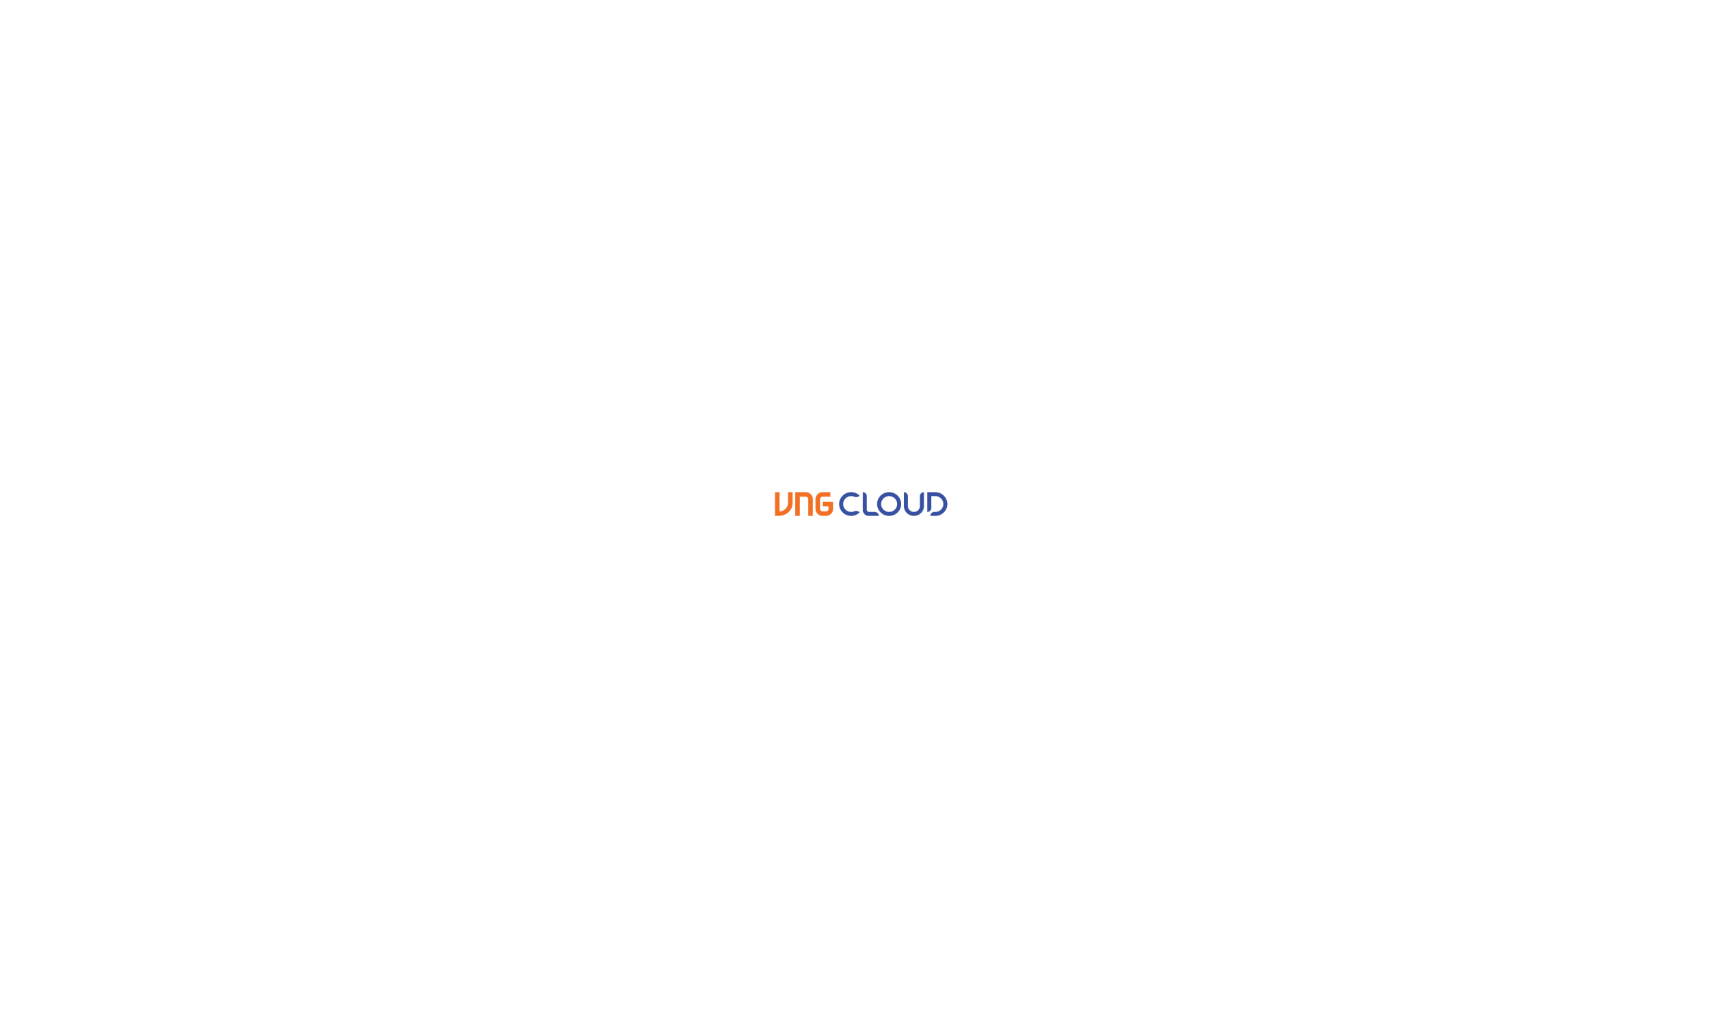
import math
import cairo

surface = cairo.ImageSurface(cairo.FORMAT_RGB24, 1722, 1014)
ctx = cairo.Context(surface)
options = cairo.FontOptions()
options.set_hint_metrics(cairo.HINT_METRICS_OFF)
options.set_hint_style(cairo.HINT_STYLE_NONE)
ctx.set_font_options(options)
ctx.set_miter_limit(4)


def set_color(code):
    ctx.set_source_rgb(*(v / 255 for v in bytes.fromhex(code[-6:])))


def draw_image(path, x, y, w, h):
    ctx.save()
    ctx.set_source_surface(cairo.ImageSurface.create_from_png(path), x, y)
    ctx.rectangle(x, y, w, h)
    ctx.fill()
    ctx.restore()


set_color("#ffffff")
ctx.paint()
draw_image("assets/img1.png", 774, 492, 174, 24)
surface.write_to_png("output.png")
